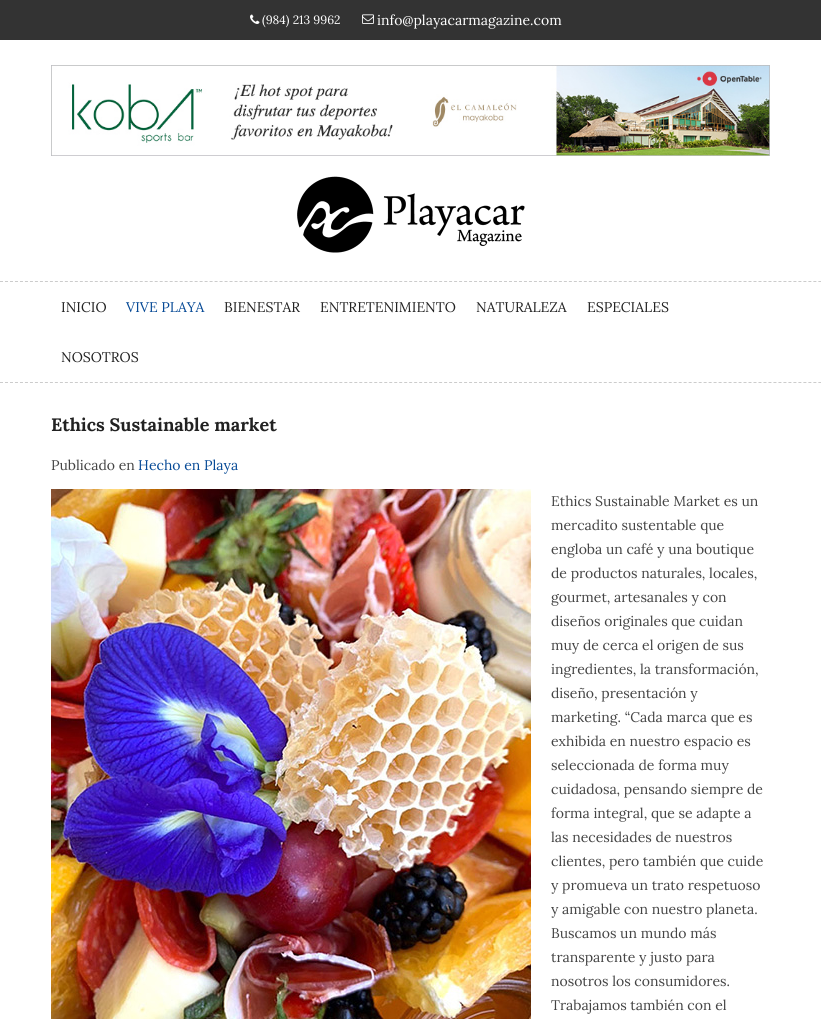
import math
import cairo

surface = cairo.ImageSurface(cairo.FORMAT_RGB24, 821, 1019)
ctx = cairo.Context(surface)
options = cairo.FontOptions()
options.set_hint_metrics(cairo.HINT_METRICS_OFF)
options.set_hint_style(cairo.HINT_STYLE_NONE)
ctx.set_font_options(options)
ctx.set_miter_limit(4)


def set_color(code):
    ctx.set_source_rgb(*(v / 255 for v in bytes.fromhex(code[-6:])))


def draw_text(x, y, s, family, size, color, bold=False, italic=False):
    ctx.select_font_face(family, cairo.FONT_SLANT_ITALIC if italic else cairo.FONT_SLANT_NORMAL, cairo.FONT_WEIGHT_BOLD if bold else cairo.FONT_WEIGHT_NORMAL)
    ctx.set_font_size(size)
    set_color(color)
    ctx.move_to(x, y)
    ctx.show_text(s)


def fill_rect(x, y, w, h, color):
    set_color(color)
    ctx.rectangle(x, y, w, h)
    ctx.fill()


def draw_image(path, x, y, w, h):
    ctx.save()
    ctx.set_source_surface(cairo.ImageSurface.create_from_png(path), x, y)
    ctx.rectangle(x, y, w, h)
    ctx.fill()
    ctx.restore()


set_color("#ffffff")
ctx.paint()
fill_rect(0, 0, 821, 40, "#333333")
draw_image("assets/img1.png", 250, 14, 10, 10)
draw_text(262, 24, "(984) 213 9962", "Lora", 12, "#ffffff")
draw_image("assets/img2.png", 362, 14, 12, 10)
draw_text(377, 25, "info@playacarmagazine.com", "Lora", 14, "#ffffff")
draw_image("assets/img3.png", 51, 65, 719, 91)
draw_image("assets/img4.png", 297, 176, 228, 77)
ctx.new_path()
ctx.move_to(0, 281.5)
ctx.line_to(821, 281.5)
set_color("#cccccc")
ctx.set_line_width(1)
ctx.set_dash([3, 1.99])
ctx.stroke()
ctx.new_path()
ctx.move_to(0, 382.5)
ctx.line_to(821, 382.5)
ctx.stroke()
draw_text(61, 312, "INICIO", "Lora", 14, "#222222")
draw_text(126, 312, "VIVE PLAYA", "Lora", 14, "#074a96")
draw_text(224, 312, "BIENESTAR", "Lora", 14, "#222222")
draw_text(320, 312, "ENTRETENIMIENTO", "Lora", 14, "#222222")
draw_text(476, 312, "NATURALEZA", "Lora", 14, "#222222")
draw_text(587, 312, "ESPECIALES", "Lora", 14, "#222222")
draw_text(61, 362, "NOSOTROS", "Lora", 14, "#222222")
draw_text(51, 431, "Ethics Sustainable market", "Lora", 18, "#222222", bold=True)
draw_text(51, 470, "Publicado en", "Lora", 14, "#444444")
draw_text(138, 470, "Hecho en Playa", "Lora", 14, "#074a96")
draw_image("assets/img5.png", 51, 489, 480, 530)
draw_text(551, 506, "Ethics Sustainable Market es un", "Lora", 14, "#444444")
draw_text(551, 530, "mercadito sustentable que", "Lora", 14, "#444444")
draw_text(551, 554, "engloba un café y una boutique", "Lora", 14, "#444444")
draw_text(551, 578, "de productos naturales, locales,", "Lora", 14, "#444444")
draw_text(551, 602, "gourmet, artesanales y con", "Lora", 14, "#444444")
draw_text(551, 626, "diseños originales que cuidan", "Lora", 14, "#444444")
draw_text(551, 650, "muy de cerca el origen de sus", "Lora", 14, "#444444")
draw_text(551, 674, "ingredientes, la transformación,", "Lora", 14, "#444444")
draw_text(551, 698, "diseño, presentación y", "Lora", 14, "#444444")
draw_text(551, 722, "marketing. “Cada marca que es", "Lora", 14, "#444444")
draw_text(551, 746, "exhibida en nuestro espacio es", "Lora", 14, "#444444")
draw_text(551, 770, "seleccionada de forma muy", "Lora", 14, "#444444")
draw_text(551, 794, "cuidadosa, pensando siempre de", "Lora", 14, "#444444")
draw_text(551, 818, "forma integral, que se adapte a", "Lora", 14, "#444444")
draw_text(551, 842, "las necesidades de nuestros", "Lora", 14, "#444444")
draw_text(551, 866, "clientes, pero también que cuide", "Lora", 14, "#444444")
draw_text(551, 890, "y promueva un trato respetuoso", "Lora", 14, "#444444")
draw_text(551, 914, "y amigable con nuestro planeta.", "Lora", 14, "#444444")
draw_text(551, 938, "Buscamos un mundo más", "Lora", 14, "#444444")
draw_text(551, 962, "transparente y justo para", "Lora", 14, "#444444")
draw_text(551, 986, "nosotros los consumidores.", "Lora", 14, "#444444")
draw_text(551, 1010, "Trabajamos también con el", "Lora", 14, "#444444")
surface.write_to_png("output.png")
